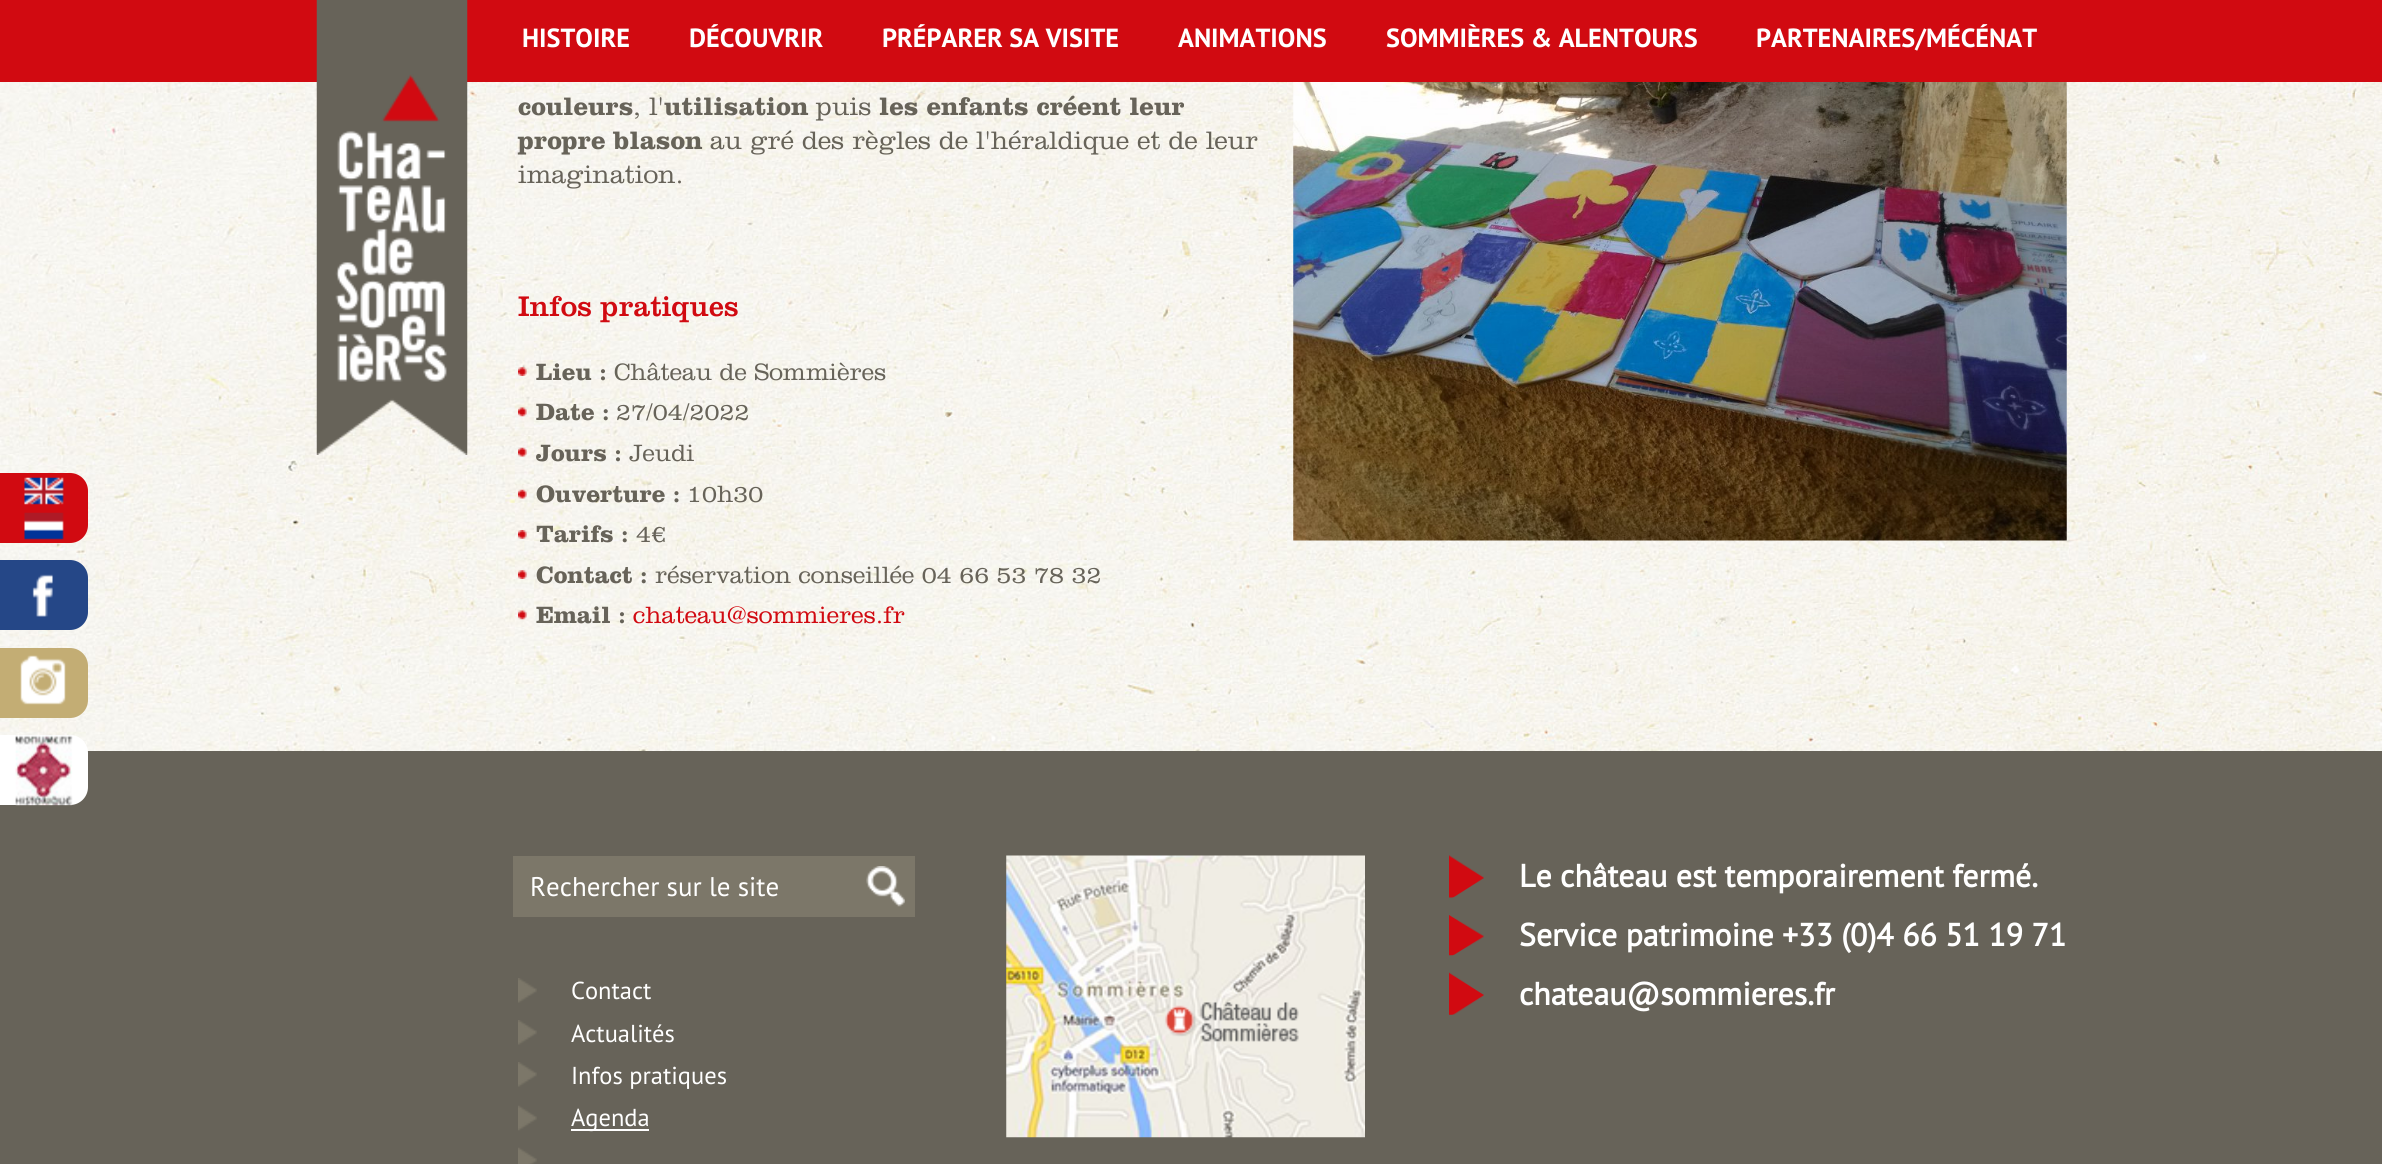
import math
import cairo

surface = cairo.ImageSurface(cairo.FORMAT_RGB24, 2382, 1164)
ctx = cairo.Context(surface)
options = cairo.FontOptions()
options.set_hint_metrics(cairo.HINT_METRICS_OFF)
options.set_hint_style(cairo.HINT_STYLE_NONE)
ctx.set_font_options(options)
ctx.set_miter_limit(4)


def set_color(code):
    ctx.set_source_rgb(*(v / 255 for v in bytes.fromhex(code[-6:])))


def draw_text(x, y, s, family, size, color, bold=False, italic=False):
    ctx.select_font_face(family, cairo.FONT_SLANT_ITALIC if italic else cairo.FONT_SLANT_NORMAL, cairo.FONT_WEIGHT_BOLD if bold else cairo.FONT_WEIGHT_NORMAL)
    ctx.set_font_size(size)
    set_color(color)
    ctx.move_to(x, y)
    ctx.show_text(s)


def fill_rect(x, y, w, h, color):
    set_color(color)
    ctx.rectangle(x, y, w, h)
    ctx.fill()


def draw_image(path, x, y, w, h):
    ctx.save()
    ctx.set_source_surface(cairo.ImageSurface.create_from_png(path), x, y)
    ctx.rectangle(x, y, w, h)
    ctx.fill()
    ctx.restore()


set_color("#ffffff")
ctx.paint()
draw_image("assets/img1.png", 0, 82, 2382, 669)
fill_rect(0, 0, 2382, 82, "#d10a11")
draw_image("assets/img2.png", 316, 0, 152, 455)
draw_text(522, 47, "HISTOIRE", "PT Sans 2", 26.25, "#ffffff", bold=True)
draw_text(689, 47, "DÉCOUVRIR", "PT Sans 2", 26.25, "#ffffff", bold=True)
draw_text(882, 47, "PRÉPARER SA VISITE", "PT Sans 2", 26.25, "#ffffff", bold=True)
draw_text(1178, 47, "ANIMATIONS", "PT Sans 2", 26.25, "#ffffff", bold=True)
draw_text(1386, 47, "SOMMIÈRES & ALENTOURS", "PT Sans 2", 26.25, "#ffffff", bold=True)
draw_text(1756, 47, "PARTENAIRES/MÉCÉNAT", "PT Sans 2", 26.25, "#ffffff", bold=True)
set_color("#d10a11")
ctx.new_path()
ctx.move_to(0, 473)
ctx.line_to(70, 473)
ctx.curve_to(80, 473, 88, 481, 88, 491)
ctx.line_to(88, 525)
ctx.curve_to(88, 535, 80, 543, 70, 543)
ctx.line_to(0, 543)
ctx.close_path()
ctx.fill()
draw_image("assets/img3.png", 24, 477, 40, 28)
draw_image("assets/img4.png", 24, 512, 40, 28)
set_color("#254787")
ctx.new_path()
ctx.move_to(0, 560)
ctx.line_to(70, 560)
ctx.curve_to(80, 560, 88, 568, 88, 578)
ctx.line_to(88, 612)
ctx.curve_to(88, 622, 80, 630, 70, 630)
ctx.line_to(0, 630)
ctx.close_path()
ctx.fill()
draw_image("assets/img5.png", 32, 574, 21, 43)
set_color("#c3ad74")
ctx.new_path()
ctx.move_to(0, 648)
ctx.line_to(70, 648)
ctx.curve_to(80, 648, 88, 656, 88, 666)
ctx.line_to(88, 700)
ctx.curve_to(88, 710, 80, 718, 70, 718)
ctx.line_to(0, 718)
ctx.close_path()
ctx.fill()
draw_image("assets/img6.png", 20, 655, 46, 50)
fill_rect(0, 751, 2382, 413, "#676359")
set_color("#ffffff")
ctx.new_path()
ctx.move_to(0, 735)
ctx.line_to(70, 735)
ctx.curve_to(80, 735, 88, 743, 88, 753)
ctx.line_to(88, 787)
ctx.curve_to(88, 797, 80, 805, 70, 805)
ctx.line_to(0, 805)
ctx.close_path()
ctx.fill()
draw_image("assets/img7.png", 15, 735, 58, 71)
draw_text(518, 115, "couleurs", "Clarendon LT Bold", 26.25, "#676359", bold=True)
draw_text(633, 115, ", l'", "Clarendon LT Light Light", 26.25, "#676359")
draw_text(664, 115, "utilisation", "Clarendon LT Bold", 26.25, "#676359", bold=True)
draw_text(816, 115, "puis", "Clarendon LT Light Light", 26.25, "#676359")
draw_text(879, 115, "les enfants créent leur", "Clarendon LT Bold", 26.25, "#676359", bold=True)
draw_text(518, 149, "propre blason", "Clarendon LT Bold", 26.25, "#676359", bold=True)
draw_text(710, 149, "au gré des règles de l'héraldique et de leur", "Clarendon LT Light Light", 26.25, "#676359")
draw_text(518, 183, "imagination.", "Clarendon LT Light Light", 26.25, "#676359")
draw_image("assets/img8.png", 1293, 82, 774, 459)
draw_text(518, 316, "Infos pratiques", "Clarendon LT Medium", 29.5, "#d10a11")
draw_image("assets/img9.png", 518, 367, 9, 9)
draw_text(536, 380, "Lieu :", "Clarendon LT Bold", 24.5, "#676359", bold=True)
draw_text(614, 380, "Château de Sommières", "Clarendon LT Light Light", 24.5, "#676359")
draw_image("assets/img10.png", 518, 407, 9, 10)
draw_text(536, 420, "Date :", "Clarendon LT Bold", 24.5, "#676359", bold=True)
draw_text(616, 420, "27/04/2022", "Clarendon LT Light Light", 24.5, "#676359")
draw_image("assets/img11.png", 518, 447, 9, 10)
draw_text(536, 461, "Jours :", "Clarendon LT Bold", 24.5, "#676359", bold=True)
draw_text(629, 461, "Jeudi", "Clarendon LT Light Light", 24.5, "#676359")
draw_image("assets/img12.png", 518, 489, 9, 10)
draw_text(536, 502, "Ouverture :", "Clarendon LT Bold", 24.5, "#676359", bold=True)
draw_text(687, 502, "10h30", "Clarendon LT Light Light", 24.5, "#676359")
draw_image("assets/img13.png", 518, 530, 9, 9)
draw_text(536, 542, "Tarifs :", "Clarendon LT Bold", 24.5, "#676359", bold=True)
draw_text(636, 542, "4€", "Clarendon LT Light Light", 24.5, "#676359")
draw_image("assets/img14.png", 518, 570, 9, 9)
draw_text(536, 583, "Contact :", "Clarendon LT Bold", 24.5, "#676359", bold=True)
draw_text(655, 583, "réservation conseillée 04 66 53 78 32", "Clarendon LT Light Light", 24.5, "#676359")
draw_image("assets/img15.png", 518, 610, 9, 10)
draw_text(536, 623, "Email :", "Clarendon LT Bold", 24.5, "#676359", bold=True)
draw_text(633, 623, "chateau@sommieres.fr", "Clarendon LT Light Light", 24.5, "#d10a11")
fill_rect(513, 856, 402, 61, "#7c7769")
draw_text(530, 896, "Rechercher sur le site", "PT Sans", 27, "#ffffff")
draw_image("assets/img16.png", 866, 866, 39, 41)
draw_image("assets/img17.png", 518, 978, 19, 25)
draw_text(571, 999, "Contact", "PT Sans", 24.5, "#ffffff")
draw_image("assets/img17.png", 518, 1020, 19, 25)
draw_text(571, 1042, "Actualités", "PT Sans", 24.5, "#ffffff")
draw_image("assets/img17.png", 518, 1062, 19, 25)
draw_text(571, 1084, "Infos pratiques", "PT Sans", 24.5, "#ffffff")
draw_image("assets/img18.png", 518, 1105, 19, 26)
fill_rect(571, 1129, 78, 2, "#ffffff")
draw_text(571, 1126, "Agenda", "PT Sans", 24.5, "#ffffff")
draw_image("assets/img19.png", 518, 1147, 19, 17)
draw_image("assets/img20.png", 1006, 855, 359, 283)
draw_image("assets/img21.png", 1449, 855, 35, 43)
draw_text(1519, 887, "Le château est temporairement fermé.", "PT Sans", 31.8, "#ffffff", bold=True)
draw_image("assets/img22.png", 1449, 915, 35, 41)
draw_text(1519, 946, "Service patrimoine +33 (0)4 66 51 19 71", "PT Sans", 31.8, "#ffffff", bold=True)
draw_image("assets/img23.png", 1449, 972, 35, 43)
draw_text(1519, 1005, "chateau@sommieres.fr", "PT Sans", 31.8, "#ffffff", bold=True)
surface.write_to_png("output.png")
